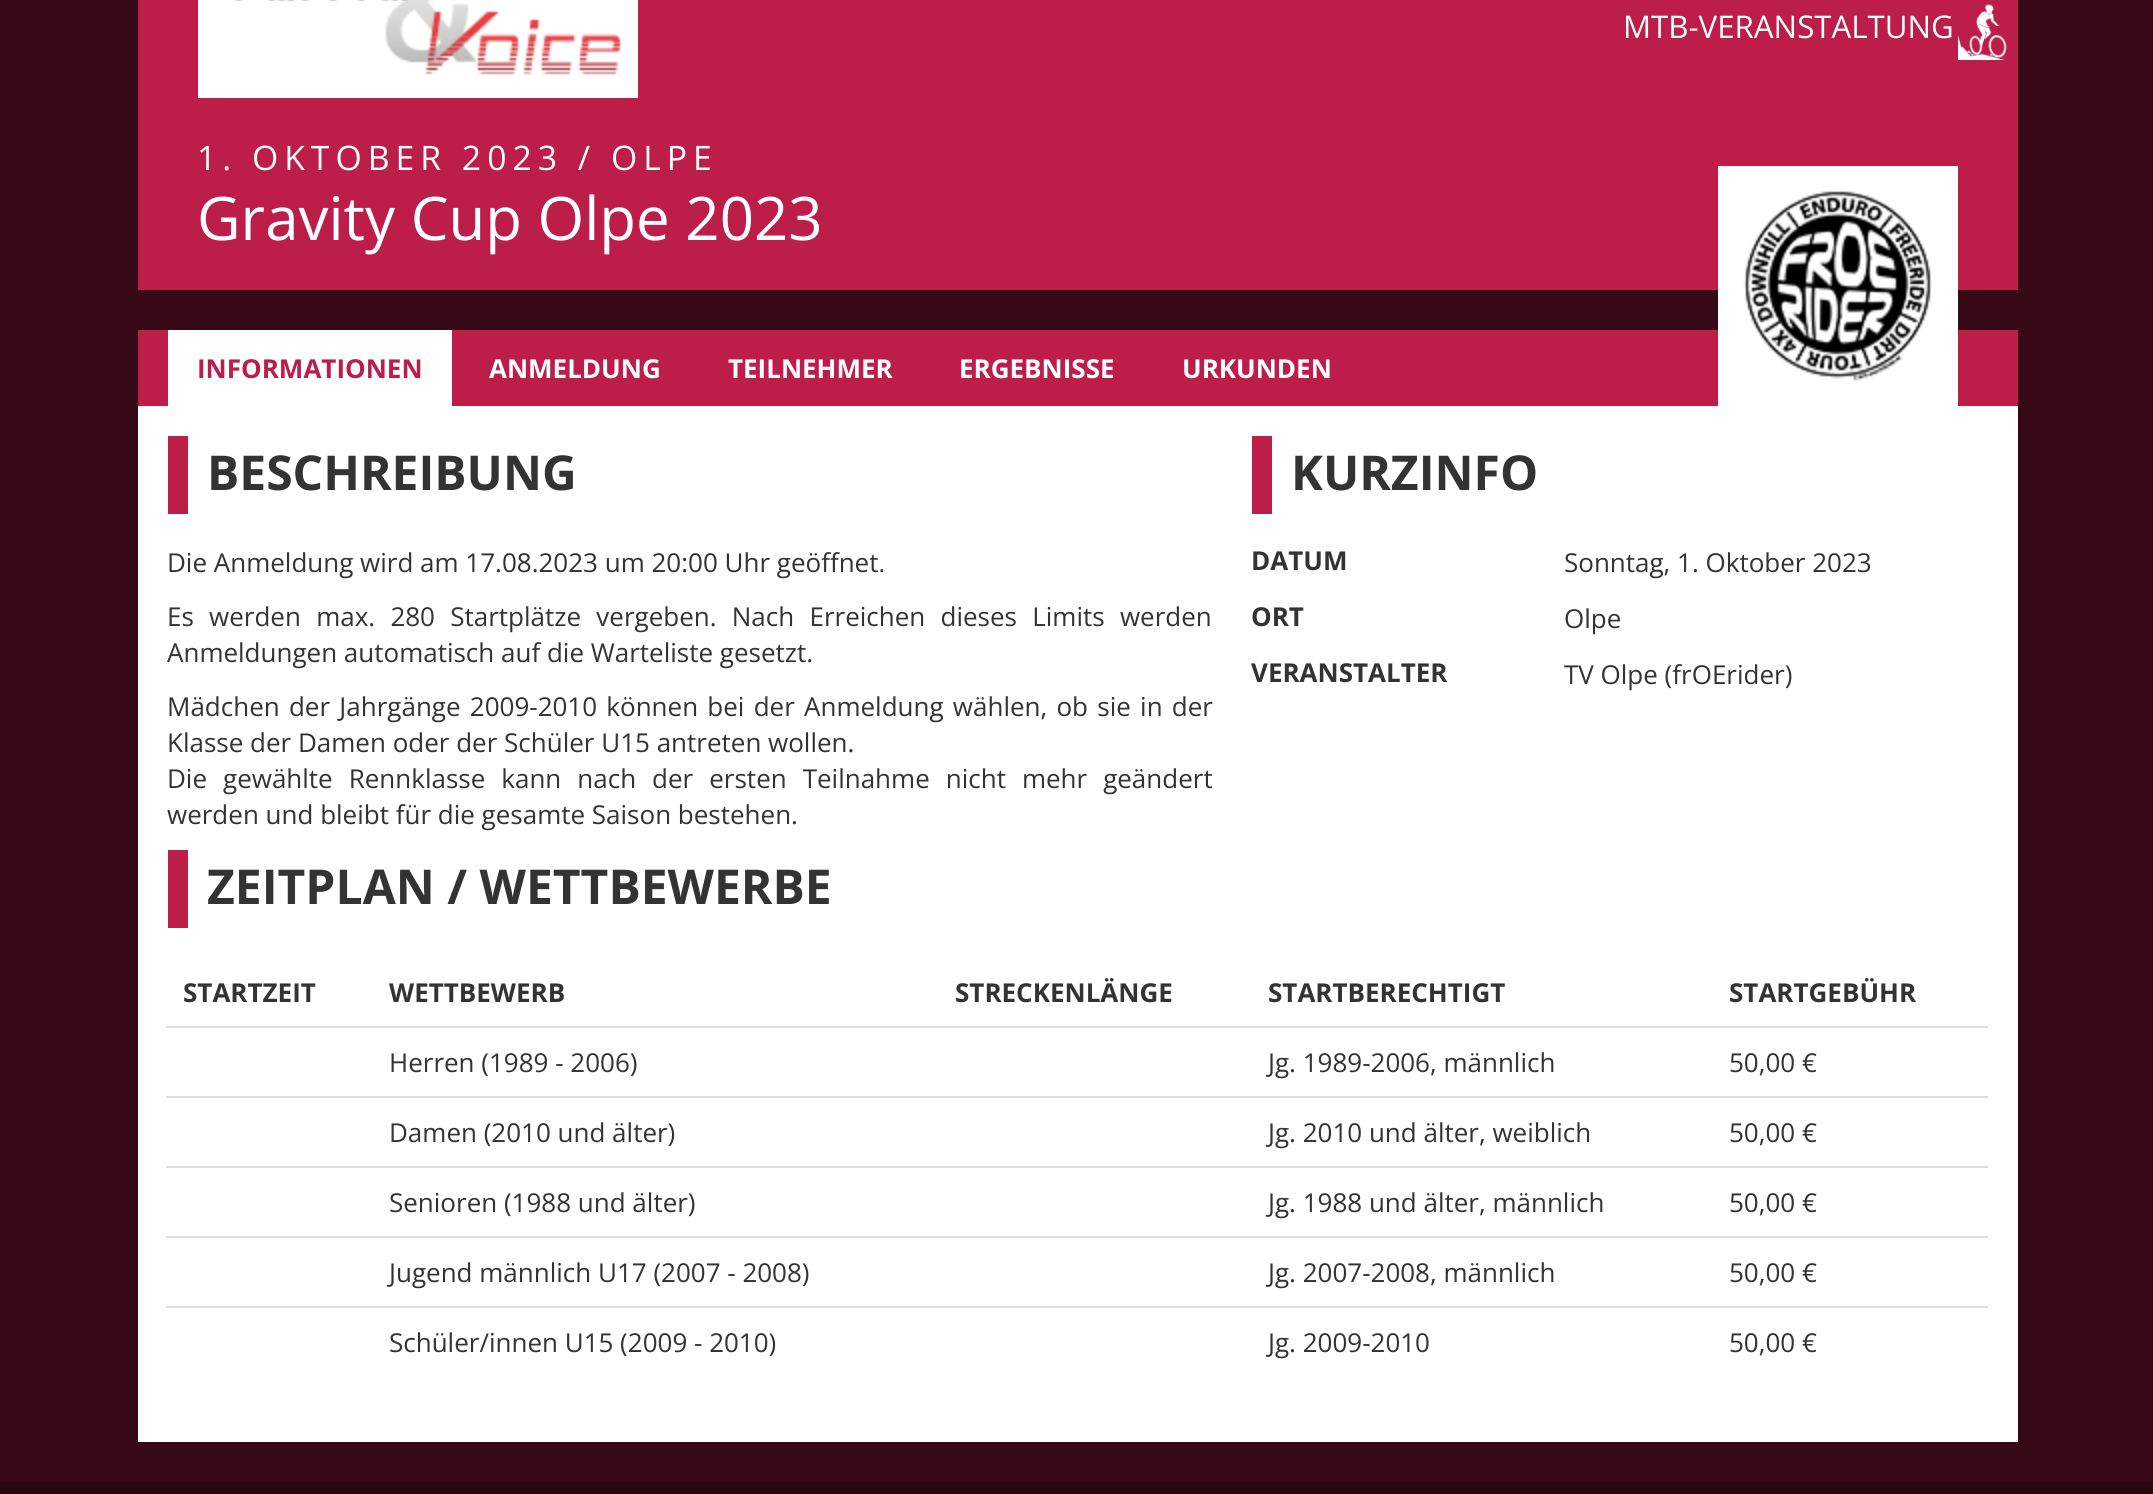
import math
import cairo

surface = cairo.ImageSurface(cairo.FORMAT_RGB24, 2153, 1494)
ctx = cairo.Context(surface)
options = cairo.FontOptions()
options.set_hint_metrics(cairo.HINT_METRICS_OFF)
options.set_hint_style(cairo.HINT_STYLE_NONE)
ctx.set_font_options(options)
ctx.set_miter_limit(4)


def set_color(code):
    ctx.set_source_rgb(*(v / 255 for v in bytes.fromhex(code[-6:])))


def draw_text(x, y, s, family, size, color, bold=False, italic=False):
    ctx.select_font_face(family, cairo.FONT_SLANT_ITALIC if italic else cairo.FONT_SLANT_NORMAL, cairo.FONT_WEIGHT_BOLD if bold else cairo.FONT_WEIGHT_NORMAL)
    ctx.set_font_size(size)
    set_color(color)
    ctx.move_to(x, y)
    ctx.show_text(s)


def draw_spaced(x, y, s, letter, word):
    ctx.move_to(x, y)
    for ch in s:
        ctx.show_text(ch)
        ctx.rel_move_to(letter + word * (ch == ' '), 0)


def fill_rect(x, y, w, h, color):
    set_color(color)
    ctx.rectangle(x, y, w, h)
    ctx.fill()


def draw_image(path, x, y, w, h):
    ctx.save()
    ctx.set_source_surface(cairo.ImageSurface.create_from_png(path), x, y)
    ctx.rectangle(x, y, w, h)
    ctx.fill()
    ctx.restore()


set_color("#370916")
ctx.paint()
fill_rect(138, 0, 1880, 290, "#bc1d49")
draw_image("assets/img1.png", 198, 0, 440, 98)
draw_image("assets/img2.png", 1958, 4, 49, 56)
draw_text(1623, 38, "MTB-VERANSTALTUNG", "Open Sans", 31.25, "#ffffff")
ctx.set_font_size(33.75)
draw_spaced(197, 170, "1. OKTOBER 2023 / OLPE", 6, 0)
draw_text(197, 240, "Gravity Cup Olpe 2023", "Open Sans", 60, "#ffffff")
fill_rect(138, 330, 1880, 76, "#bc1d49")
fill_rect(168, 330, 284, 76, "#ffffff")
draw_text(197, 378, "INFORMATIONEN", "Open Sans", 26, "#bc1d49", bold=True)
draw_text(489, 378, "ANMELDUNG", "Open Sans", 26, "#ffffff", bold=True)
draw_text(728, 378, "TEILNEHMER", "Open Sans", 26, "#ffffff", bold=True)
draw_text(959, 378, "ERGEBNISSE", "Open Sans", 26, "#ffffff", bold=True)
draw_text(1182, 378, "URKUNDEN", "Open Sans", 26, "#ffffff", bold=True)
fill_rect(1718, 166, 240, 240, "#ffffff")
draw_image("assets/img3.png", 1743, 191, 189, 190)
fill_rect(138, 406, 1880, 1036, "#ffffff")
fill_rect(168, 436, 20, 78, "#bc1d49")
draw_text(207, 490, "BESCHREIBUNG", "Open Sans", 48, "#333333", bold=True)
draw_text(167, 572, "Die Anmeldung wird am 17.08.2023 um 20:00 Uhr geöffnet.", "Open Sans", 26, "#333333")
draw_spaced(167, 626, "Es werden max. 280 Startplätze vergeben. Nach Erreichen dieses Limits werden", 0, 8.5)
draw_text(167, 662, "Anmeldungen automatisch auf die Warteliste gesetzt.", "Open Sans", 26, "#333333")
draw_spaced(167, 716, "Mädchen der Jahrgänge 2009-2010 können bei der Anmeldung wählen, ob sie in der", 0, 2.5)
draw_text(167, 752, "Klasse der Damen oder der Schüler U15 antreten wollen.", "Open Sans", 26, "#333333")
draw_spaced(167, 788, "Die gewählte Rennklasse kann nach der ersten Teilnahme nicht mehr geändert", 0, 9.25)
draw_text(167, 824, "werden und bleibt für die gesamte Saison bestehen.", "Open Sans", 26, "#333333")
fill_rect(1252, 436, 20, 78, "#bc1d49")
draw_text(1291, 490, "KURZINFO", "Open Sans", 48, "#333333", bold=True)
draw_text(1251, 570, "DATUM", "Open Sans", 26, "#333333", bold=True)
draw_text(1564, 572, "Sonntag, 1. Oktober 2023", "Open Sans", 26, "#333333")
draw_text(1251, 626, "ORT", "Open Sans", 26, "#333333", bold=True)
draw_text(1564, 628, "Olpe", "Open Sans", 26, "#333333")
draw_text(1251, 682, "VERANSTALTER", "Open Sans", 26, "#333333", bold=True)
draw_text(1564, 684, "TV Olpe (frOErider)", "Open Sans", 26, "#333333")
fill_rect(168, 850, 20, 78, "#bc1d49")
draw_text(207, 904, "ZEITPLAN / WETTBEWERBE", "Open Sans", 48, "#333333", bold=True)
draw_text(183, 1002, "STARTZEIT", "Open Sans", 26, "#333333", bold=True)
draw_text(389, 1002, "WETTBEWERB", "Open Sans", 26, "#333333", bold=True)
draw_text(955, 1002, "STRECKENLÄNGE", "Open Sans", 26, "#333333", bold=True)
draw_text(1268, 1002, "STARTBERECHTIGT", "Open Sans", 26, "#333333", bold=True)
draw_text(1729, 1002, "STARTGEBÜHR", "Open Sans", 26, "#333333", bold=True)
draw_text(389, 1072, "Herren (1989 - 2006)", "Open Sans", 26, "#333333")
draw_text(1268, 1072, "Jg. 1989-2006, männlich", "Open Sans", 26, "#333333")
fill_rect(166, 1026, 1822, 2, "#dddddd")
draw_text(1729, 1072, "50,00 €", "Open Sans", 26, "#333333")
draw_text(389, 1142, "Damen (2010 und älter)", "Open Sans", 26, "#333333")
draw_text(1268, 1142, "Jg. 2010 und älter, weiblich", "Open Sans", 26, "#333333")
fill_rect(166, 1096, 1822, 2, "#dddddd")
draw_text(1729, 1142, "50,00 €", "Open Sans", 26, "#333333")
draw_text(389, 1212, "Senioren (1988 und älter)", "Open Sans", 26, "#333333")
draw_text(1268, 1212, "Jg. 1988 und älter, männlich", "Open Sans", 26, "#333333")
fill_rect(166, 1166, 1822, 2, "#dddddd")
draw_text(1729, 1212, "50,00 €", "Open Sans", 26, "#333333")
draw_text(389, 1282, "Jugend männlich U17 (2007 - 2008)", "Open Sans", 26, "#333333")
draw_text(1268, 1282, "Jg. 2007-2008, männlich", "Open Sans", 26, "#333333")
fill_rect(166, 1236, 1822, 2, "#dddddd")
draw_text(1729, 1282, "50,00 €", "Open Sans", 26, "#333333")
draw_text(389, 1352, "Schüler/innen U15 (2009 - 2010)", "Open Sans", 26, "#333333")
draw_text(1268, 1352, "Jg. 2009-2010", "Open Sans", 26, "#333333")
fill_rect(166, 1306, 1822, 2, "#dddddd")
draw_text(1729, 1352, "50,00 €", "Open Sans", 26, "#333333")
fill_rect(0, 1482, 2153, 12, "#27060f")
surface.write_to_png("output.png")
